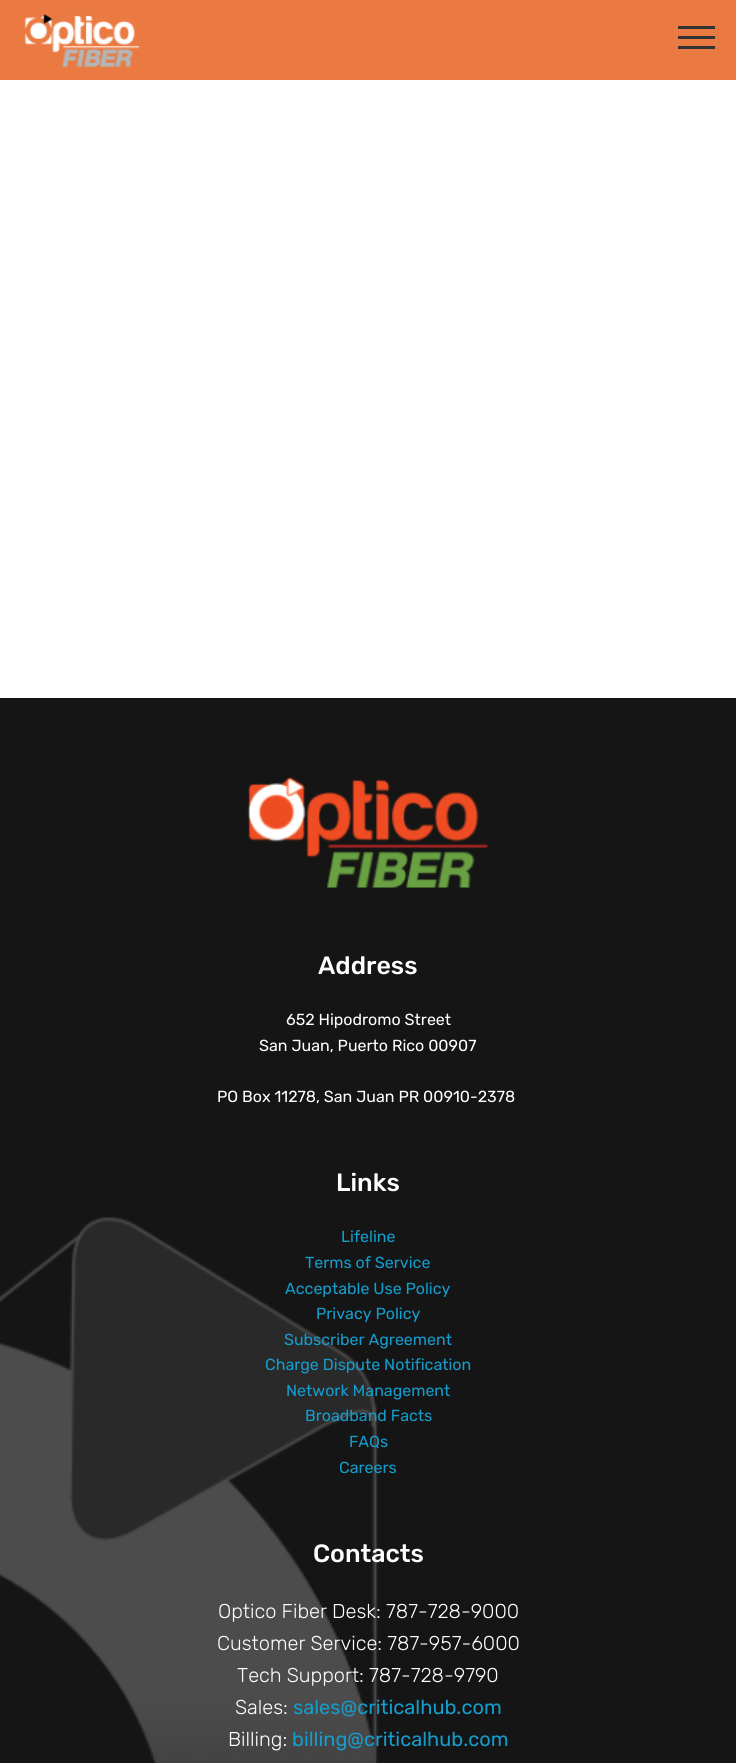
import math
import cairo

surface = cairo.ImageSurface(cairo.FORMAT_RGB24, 736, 1763)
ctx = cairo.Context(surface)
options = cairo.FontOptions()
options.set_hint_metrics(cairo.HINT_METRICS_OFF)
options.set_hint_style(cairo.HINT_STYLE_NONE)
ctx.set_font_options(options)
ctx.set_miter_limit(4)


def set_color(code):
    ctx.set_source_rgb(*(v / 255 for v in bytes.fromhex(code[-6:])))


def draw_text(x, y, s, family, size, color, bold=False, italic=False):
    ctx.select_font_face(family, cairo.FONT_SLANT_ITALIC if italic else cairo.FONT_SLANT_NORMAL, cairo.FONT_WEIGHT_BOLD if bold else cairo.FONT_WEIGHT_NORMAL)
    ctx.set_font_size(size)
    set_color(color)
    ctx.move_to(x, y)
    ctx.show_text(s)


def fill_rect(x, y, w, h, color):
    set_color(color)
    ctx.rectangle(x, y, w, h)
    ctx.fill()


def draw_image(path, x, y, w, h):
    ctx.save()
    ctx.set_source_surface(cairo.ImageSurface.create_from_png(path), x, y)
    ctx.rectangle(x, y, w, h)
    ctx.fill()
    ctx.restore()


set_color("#ffffff")
ctx.paint()
fill_rect(0, 0, 736, 80, "#ea7a41")
draw_image("assets/img1.png", 24, 14, 116, 54)
fill_rect(678, 26, 37, 3, "#333333")
fill_rect(678, 36, 37, 3, "#333333")
fill_rect(678, 46, 37, 3, "#333333")
draw_image("assets/img2.png", 0, 698, 736, 1065)
draw_image("assets/img3.png", 247, 777, 242, 112)
draw_text(318, 974, "Address", "Rubik Medium", 25, "#ffffff")
draw_text(286, 1025, "652 Hipodromo Street", "Rubik", 16, "#ffffff")
draw_text(259, 1051, "San Juan, Puerto Rico 00907", "Rubik", 16, "#ffffff")
draw_text(217, 1102, "PO Box 11278, San Juan PR 00910-2378", "Rubik", 16, "#ffffff")
draw_text(336, 1191, "Links", "Rubik Medium", 25, "#ffffff")
draw_text(341, 1242, "Lifeline", "Rubik", 16, "#149dcc")
draw_text(305, 1268, "Terms of Service", "Rubik", 16, "#149dcc")
draw_text(285, 1294, "Acceptable Use Policy", "Rubik", 16, "#149dcc")
draw_text(316, 1319, "Privacy Policy", "Rubik", 16, "#149dcc")
draw_text(284, 1345, "Subscriber Agreement", "Rubik", 16, "#149dcc")
draw_text(265, 1370, "Charge Dispute Notification", "Rubik", 16, "#149dcc")
draw_text(286, 1396, "Network Management", "Rubik", 16, "#149dcc")
draw_text(305, 1421, "Broadband Facts", "Rubik", 16, "#149dcc")
draw_text(349, 1447, "FAQs", "Rubik", 16, "#149dcc")
draw_text(339, 1473, "Careers", "Rubik", 16, "#149dcc")
draw_text(313, 1562, "Contacts", "Rubik Medium", 25, "#ffffff")
draw_text(218, 1618, "Optico Fiber Desk: 787-728-9000", "Rubik Light", 20, "#ffffff")
draw_text(217, 1650, "Customer Service: 787-957-6000", "Rubik Light", 20, "#ffffff")
draw_text(237, 1682, "Tech Support: 787-728-9790", "Rubik Light", 20, "#ffffff")
draw_text(235, 1714, "Sales:", "Rubik Light", 20, "#ffffff")
draw_text(293, 1714, "sales@criticalhub.com", "Rubik", 20, "#149dcc")
draw_text(228, 1746, "Billing:", "Rubik Light", 20, "#ffffff")
draw_text(292, 1746, "billing@criticalhub.com", "Rubik", 20, "#149dcc")
surface.write_to_png("output.png")
